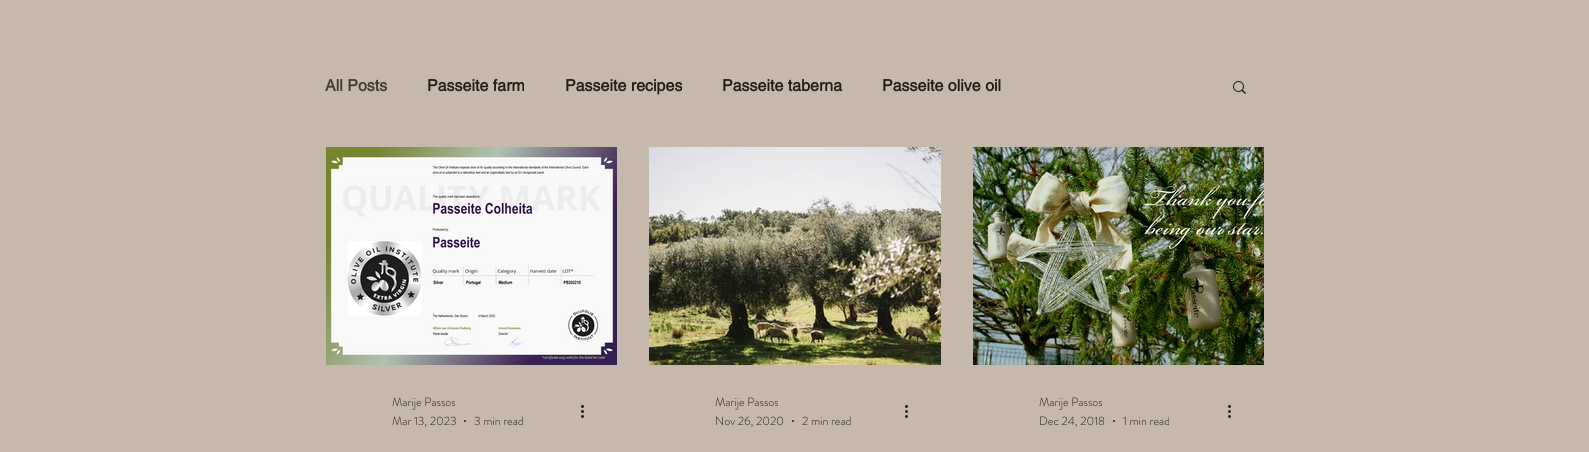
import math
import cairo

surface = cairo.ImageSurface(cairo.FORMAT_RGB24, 1589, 452)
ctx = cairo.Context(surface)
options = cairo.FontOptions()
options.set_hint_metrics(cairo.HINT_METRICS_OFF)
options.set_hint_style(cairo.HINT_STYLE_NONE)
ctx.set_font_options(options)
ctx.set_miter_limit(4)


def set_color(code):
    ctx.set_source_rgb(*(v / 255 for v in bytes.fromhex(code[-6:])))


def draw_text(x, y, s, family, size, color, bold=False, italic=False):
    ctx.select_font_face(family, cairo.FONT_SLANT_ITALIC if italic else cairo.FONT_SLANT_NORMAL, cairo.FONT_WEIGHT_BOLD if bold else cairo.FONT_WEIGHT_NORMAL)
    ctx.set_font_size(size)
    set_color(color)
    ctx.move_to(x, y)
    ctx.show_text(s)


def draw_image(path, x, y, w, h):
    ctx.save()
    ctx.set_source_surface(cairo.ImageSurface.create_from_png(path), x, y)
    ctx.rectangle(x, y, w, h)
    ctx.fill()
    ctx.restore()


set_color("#c6b9ac")
ctx.paint()
draw_text(325, 91, "All Posts", "helvetica", 16, "#423b33", bold=True)
draw_text(427, 91, "Passeite farm", "helvetica", 16, "#211d19", bold=True)
draw_text(565, 91, "Passeite recipes", "helvetica", 16, "#211d19", bold=True)
draw_text(722, 91, "Passeite taberna", "helvetica", 16, "#211d19", bold=True)
draw_text(882, 91, "Passeite olive oil", "helvetica", 16, "#211d19", bold=True)
draw_image("assets/img1.png", 1233, 81, 13, 13)
draw_image("assets/img2.png", 326, 147, 291, 218)
draw_text(392, 406, "Marije Passos", "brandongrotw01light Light", 12, "#211d19")
draw_text(392, 425, "Mar 13, 2023", "brandongrotw01light Light", 12, "#211d19")
ctx.new_path()
ctx.arc(465, 421, 1, 0, 2 * math.pi)
ctx.fill()
draw_text(474, 425, "3 min read", "brandongrotw01light Light", 12, "#211d19")
draw_image("assets/img3.png", 581, 405, 3, 13)
draw_image("assets/img4.png", 649, 147, 292, 218)
draw_text(715, 406, "Marije Passos", "brandongrotw01light Light", 12, "#211d19")
draw_text(715, 425, "Nov 26, 2020", "brandongrotw01light Light", 12, "#211d19")
ctx.new_path()
ctx.arc(793, 421, 1, 0, 2 * math.pi)
ctx.fill()
draw_text(802, 425, "2 min read", "brandongrotw01light Light", 12, "#211d19")
draw_image("assets/img3.png", 905, 405, 3, 13)
draw_image("assets/img5.png", 973, 147, 291, 218)
draw_text(1039, 406, "Marije Passos", "brandongrotw01light Light", 12, "#211d19")
draw_text(1039, 425, "Dec 24, 2018", "brandongrotw01light Light", 12, "#211d19")
ctx.new_path()
ctx.arc(1114, 421, 1, 0, 2 * math.pi)
ctx.fill()
draw_text(1123, 425, "1 min read", "brandongrotw01light Light", 12, "#211d19")
draw_image("assets/img3.png", 1228, 405, 3, 13)
surface.write_to_png("output.png")
